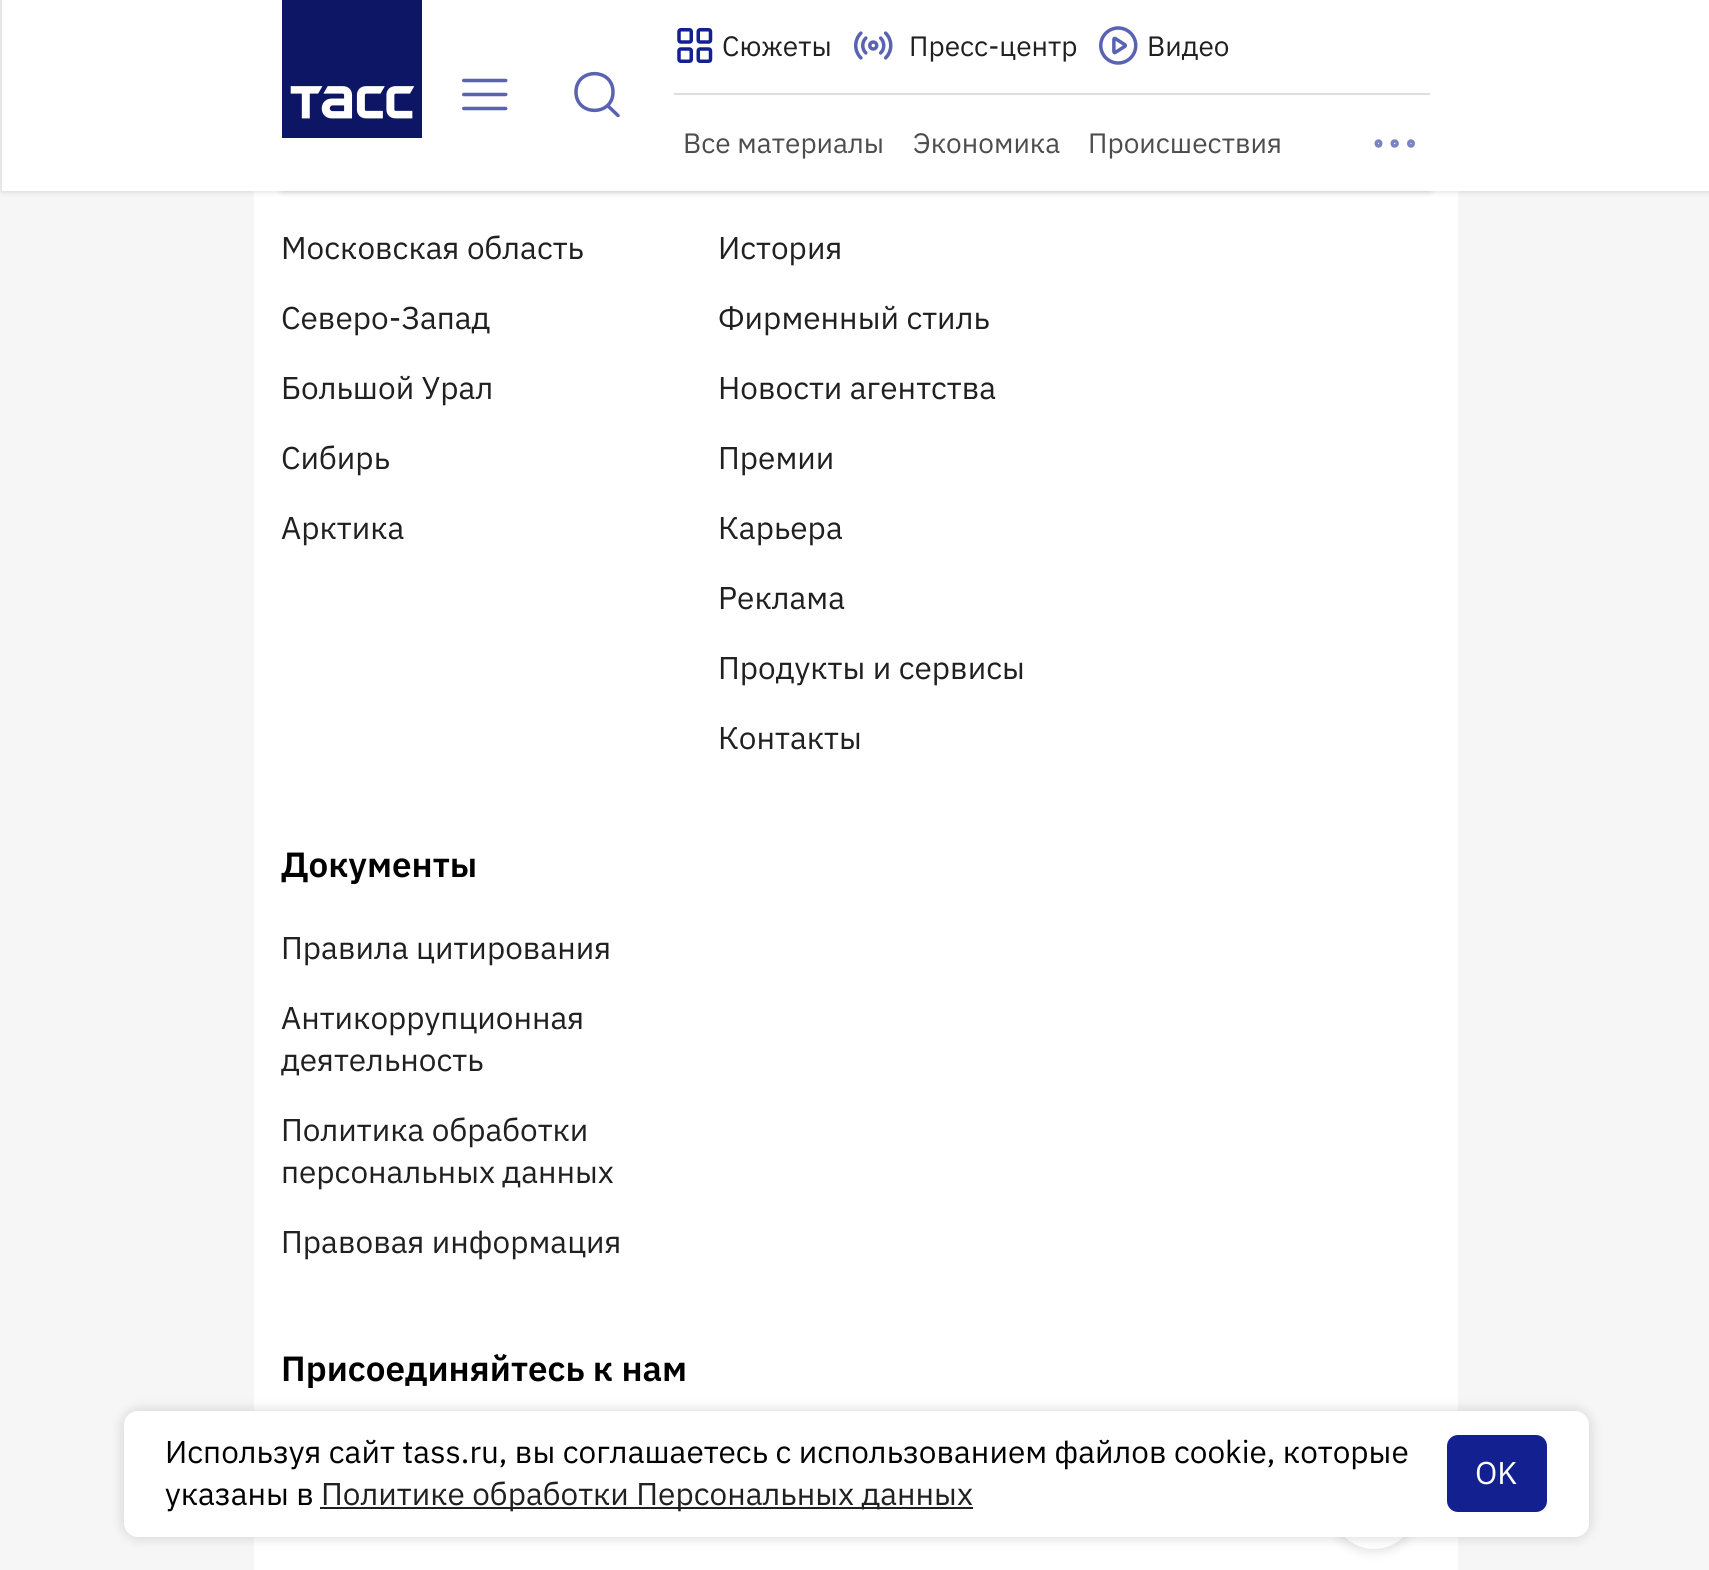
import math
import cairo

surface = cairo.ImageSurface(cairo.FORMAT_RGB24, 1709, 1570)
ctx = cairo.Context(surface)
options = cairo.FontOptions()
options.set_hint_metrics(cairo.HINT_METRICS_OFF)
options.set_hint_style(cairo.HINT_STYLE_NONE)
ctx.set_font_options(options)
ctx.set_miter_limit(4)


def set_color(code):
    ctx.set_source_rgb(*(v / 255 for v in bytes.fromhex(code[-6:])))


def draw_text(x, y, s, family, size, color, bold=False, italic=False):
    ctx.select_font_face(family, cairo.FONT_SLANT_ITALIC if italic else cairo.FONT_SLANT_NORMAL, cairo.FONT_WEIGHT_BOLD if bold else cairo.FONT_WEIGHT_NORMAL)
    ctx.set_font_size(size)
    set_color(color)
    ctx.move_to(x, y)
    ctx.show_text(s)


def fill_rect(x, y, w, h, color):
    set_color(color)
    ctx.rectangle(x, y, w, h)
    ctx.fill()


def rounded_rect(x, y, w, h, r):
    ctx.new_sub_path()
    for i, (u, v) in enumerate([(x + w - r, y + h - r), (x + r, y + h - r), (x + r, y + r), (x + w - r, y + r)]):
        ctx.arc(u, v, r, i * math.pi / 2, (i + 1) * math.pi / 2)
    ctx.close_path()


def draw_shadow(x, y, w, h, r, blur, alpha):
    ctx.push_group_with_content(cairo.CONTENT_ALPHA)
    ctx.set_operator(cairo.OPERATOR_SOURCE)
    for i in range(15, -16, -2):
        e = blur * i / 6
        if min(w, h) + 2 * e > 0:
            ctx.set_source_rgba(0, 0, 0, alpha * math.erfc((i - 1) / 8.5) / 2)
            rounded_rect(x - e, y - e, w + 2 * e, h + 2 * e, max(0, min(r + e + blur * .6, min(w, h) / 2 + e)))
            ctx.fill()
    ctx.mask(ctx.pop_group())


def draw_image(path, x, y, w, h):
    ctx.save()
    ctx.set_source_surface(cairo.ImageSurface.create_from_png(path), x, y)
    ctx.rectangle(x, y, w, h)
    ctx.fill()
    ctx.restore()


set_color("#f6f6f6")
ctx.paint()
fill_rect(254, 191, 1204, 1379, "#ffffff")
set_color("#000000")
draw_shadow(282, -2, 1148, 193, 0, 3.5, 0.16)
draw_shadow(2, -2, 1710, 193, 0, 3.5, 0.16)
fill_rect(2, 0, 1707, 191, "#ffffff")
fill_rect(282, 0, 140, 138, "#0d1665")
draw_image("assets/img1.png", 290, 86, 125, 33)
fill_rect(674, 93, 756, 2, "#dddde2")
draw_image("assets/img2.png", 677, 28, 36, 35)
draw_text(722, 56, "Сюжеты", "IBM Plex Sans", 28, "#202020")
draw_image("assets/img3.png", 854, 31, 39, 29)
draw_text(909, 56, "Пресс-центр", "IBM Plex Sans", 28, "#202020")
draw_image("assets/img4.png", 1099, 26, 39, 39)
draw_text(1147, 56, "Видео", "IBM Plex Sans", 28, "#202020")
draw_image("assets/img5.png", 462, 78, 46, 33)
ctx.new_path()
ctx.move_to(618, 115.5)
ctx.line_to(607.5, 105.5)
ctx.move_to(613, 92)
ctx.curve_to(613, 116.5, 576, 116.5, 576, 92)
ctx.curve_to(576, 67.5, 613, 67.5, 613, 92)
set_color("#5963b1")
ctx.set_line_width(3.5)
ctx.set_line_cap(cairo.LINE_CAP_ROUND)
ctx.set_line_join(cairo.LINE_JOIN_ROUND)
ctx.stroke()
draw_text(683, 153, "Все материалы", "IBM Plex Sans", 28, "#4d4d4d")
draw_text(913, 153, "Экономика", "IBM Plex Sans", 28, "#4d4d4d")
draw_text(1088, 153, "Происшествия", "IBM Plex Sans", 28, "#4d4d4d")
ctx.new_path()
ctx.move_to(1394.5, 146)
ctx.curve_to(1398, 146, 1398, 141, 1394.5, 141)
ctx.curve_to(1391.5, 141, 1391.5, 146, 1394.5, 146)
ctx.move_to(1411, 146)
ctx.curve_to(1414, 146, 1414, 141, 1411, 141)
ctx.curve_to(1408, 141, 1408, 146, 1411, 146)
ctx.move_to(1378.5, 146)
ctx.curve_to(1381.5, 146, 1381.5, 141, 1378.5, 141)
ctx.curve_to(1375.5, 141, 1375.5, 146, 1378.5, 146)
set_color("#7a82c1")
ctx.stroke()
draw_text(281, 259, "Московская область", "IBM Plex Sans", 31.5, "#202020")
draw_text(281, 329, "Северо-Запад", "IBM Plex Sans", 31.5, "#202020")
draw_text(281, 399, "Большой Урал", "IBM Plex Sans", 31.5, "#202020")
draw_text(281, 469, "Сибирь", "IBM Plex Sans", 31.5, "#202020")
draw_text(281, 539, "Арктика", "IBM Plex Sans", 31.5, "#202020")
draw_text(718, 259, "История", "IBM Plex Sans", 31.5, "#202020")
draw_text(718, 329, "Фирменный стиль", "IBM Plex Sans", 31.5, "#202020")
draw_text(718, 399, "Новости агентства", "IBM Plex Sans", 31.5, "#202020")
draw_text(718, 469, "Премии", "IBM Plex Sans", 31.5, "#202020")
draw_text(718, 539, "Карьера", "IBM Plex Sans", 31.5, "#202020")
draw_text(718, 609, "Реклама", "IBM Plex Sans", 31.5, "#202020")
draw_text(718, 679, "Продукты и сервисы", "IBM Plex Sans", 31.5, "#202020")
draw_text(718, 749, "Контакты", "IBM Plex Sans", 31.5, "#202020")
draw_text(281, 877, "Документы", "IBM Plex Sans SemiBold", 35, "#000000")
draw_text(281, 959, "Правила цитирования", "IBM Plex Sans", 31.5, "#202020")
draw_text(281, 1029, "Антикоррупционная", "IBM Plex Sans", 31.5, "#202020")
draw_text(281, 1071, "деятельность", "IBM Plex Sans", 31.5, "#202020")
draw_text(281, 1141, "Политика обработки", "IBM Plex Sans", 31.5, "#202020")
draw_text(281, 1183, "персональных данных", "IBM Plex Sans", 31.5, "#202020")
draw_text(281, 1253, "Правовая информация", "IBM Plex Sans", 31.5, "#202020")
draw_text(281, 1381, "Присоединяйтесь к нам", "IBM Plex Sans SemiBold", 35, "#000000")
set_color("#000000")
draw_shadow(1332, 1465, 84, 84, 42, 7, 0.16)
set_color("#ffffff")
ctx.arc(1374, 1507, 42, 0, 2 * math.pi)
ctx.fill()
set_color("#000000")
draw_shadow(124, 1411, 1465, 126, 14, 7, 0.16)
set_color("#ffffff")
rounded_rect(124, 1411, 1465, 126, 14)
ctx.fill()
draw_text(165, 1463, "Используя сайт tass.ru, вы соглашаетесь с использованием файлов cookie, которые", "IBM Plex Sans", 31.5, "#000000")
draw_text(165, 1505, "указаны в", "IBM Plex Sans", 31.5, "#000000")
fill_rect(320, 1507, 653, 2, "#202020")
draw_text(321, 1505, "Политике обработки Персональных данных", "IBM Plex Sans", 31.5, "#202020")
set_color("#122090")
rounded_rect(1447, 1435, 100, 77, 11)
ctx.fill()
draw_text(1475, 1484, "OK", "IBM Plex Sans", 31.5, "#ffffff")
surface.write_to_png("output.png")
